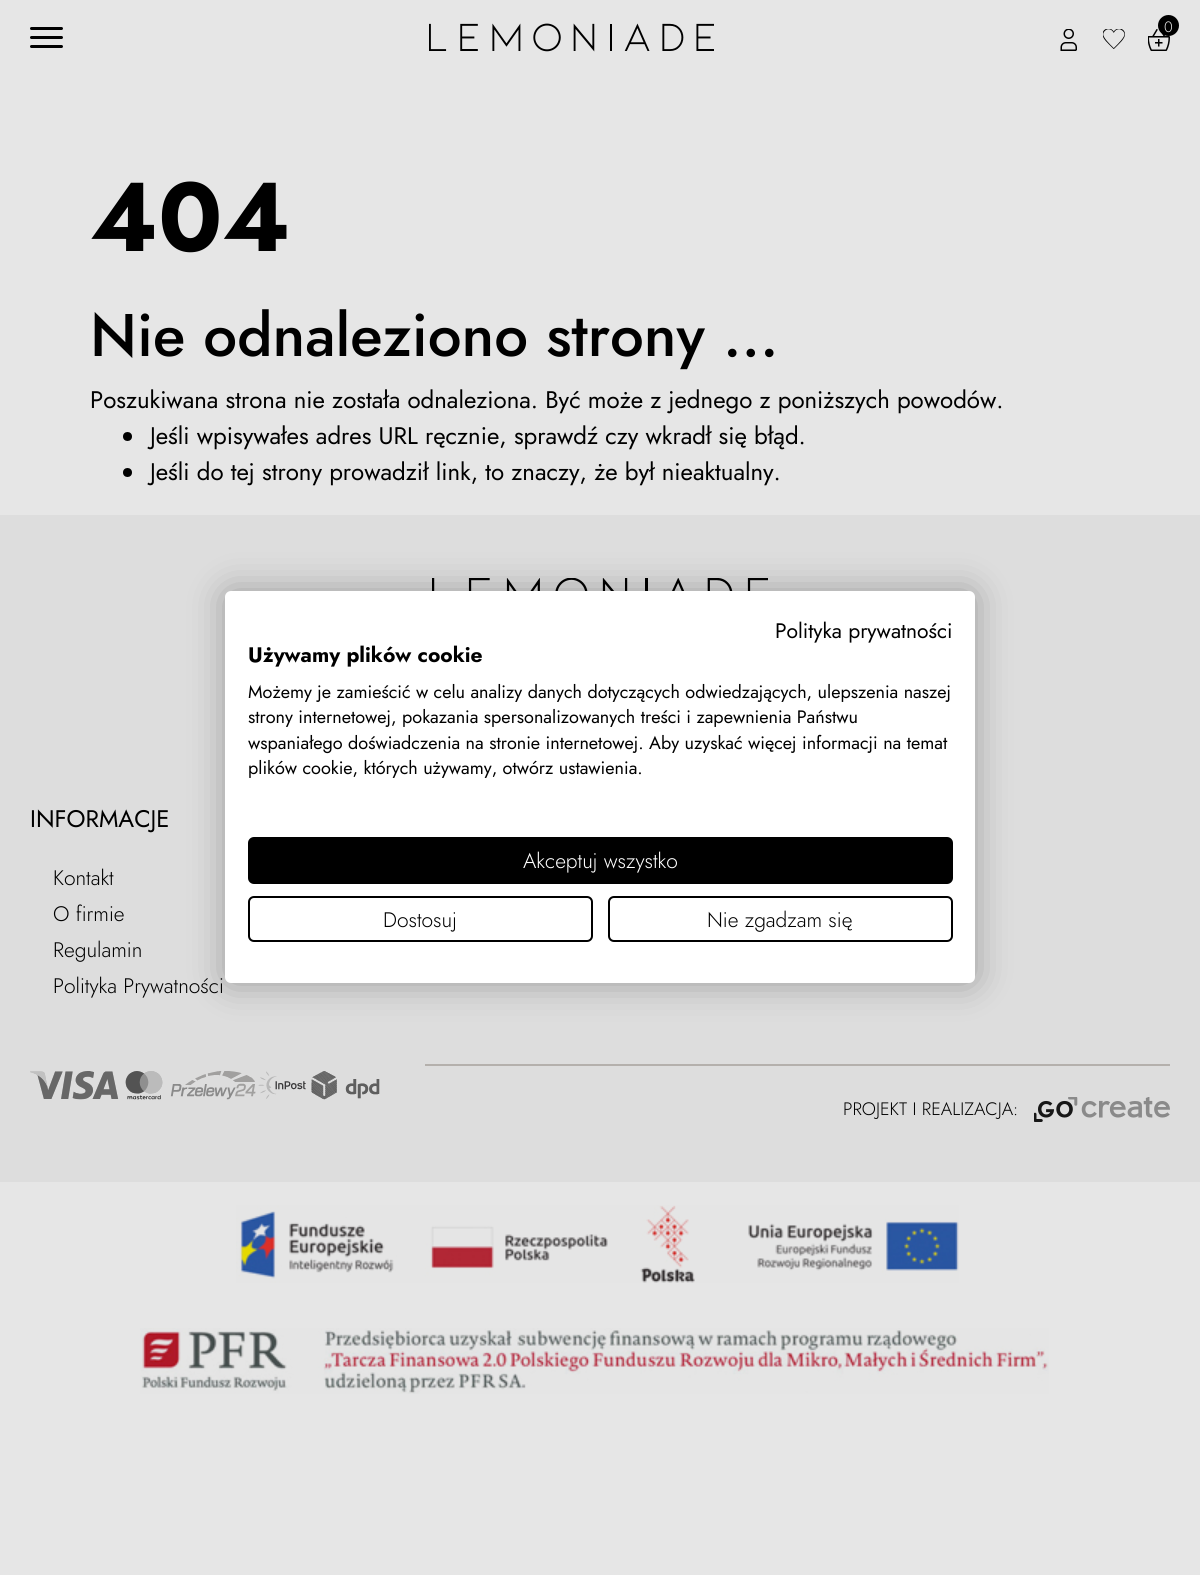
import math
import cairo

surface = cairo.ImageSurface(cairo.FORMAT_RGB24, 1200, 1575)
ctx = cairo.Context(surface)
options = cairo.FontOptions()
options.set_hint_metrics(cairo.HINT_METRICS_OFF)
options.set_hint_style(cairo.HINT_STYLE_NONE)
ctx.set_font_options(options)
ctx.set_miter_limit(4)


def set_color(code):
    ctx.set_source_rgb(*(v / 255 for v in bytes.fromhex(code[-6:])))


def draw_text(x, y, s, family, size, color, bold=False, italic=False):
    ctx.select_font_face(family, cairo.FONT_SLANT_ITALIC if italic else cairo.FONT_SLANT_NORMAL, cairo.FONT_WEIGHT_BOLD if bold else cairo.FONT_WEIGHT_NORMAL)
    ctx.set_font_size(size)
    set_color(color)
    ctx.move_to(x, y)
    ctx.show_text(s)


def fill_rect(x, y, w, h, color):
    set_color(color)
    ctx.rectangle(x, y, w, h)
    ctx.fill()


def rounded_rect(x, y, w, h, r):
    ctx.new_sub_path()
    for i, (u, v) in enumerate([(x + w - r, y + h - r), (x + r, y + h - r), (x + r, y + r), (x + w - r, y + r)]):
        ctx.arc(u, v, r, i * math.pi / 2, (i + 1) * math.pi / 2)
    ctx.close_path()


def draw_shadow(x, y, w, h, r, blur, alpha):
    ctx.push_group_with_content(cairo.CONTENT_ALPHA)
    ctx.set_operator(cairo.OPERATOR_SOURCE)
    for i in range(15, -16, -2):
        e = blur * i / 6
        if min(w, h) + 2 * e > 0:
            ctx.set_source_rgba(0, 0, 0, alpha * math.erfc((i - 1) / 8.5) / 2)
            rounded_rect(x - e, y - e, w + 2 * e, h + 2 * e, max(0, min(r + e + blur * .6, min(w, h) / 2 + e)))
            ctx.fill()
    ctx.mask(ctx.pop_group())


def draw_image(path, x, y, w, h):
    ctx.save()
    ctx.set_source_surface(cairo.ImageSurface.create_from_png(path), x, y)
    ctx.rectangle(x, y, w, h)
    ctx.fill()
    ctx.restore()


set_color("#e6e6e6")
ctx.paint()
set_color("#000000")
rounded_rect(30, 36, 33, 3, 1.5)
ctx.fill()
rounded_rect(30, 27, 33, 3, 1.5)
ctx.fill()
rounded_rect(30, 45, 33, 3, 1.5)
ctx.fill()
draw_image("assets/img1.png", 429, 23, 285, 29)
draw_image("assets/img2.png", 1148, 29, 22, 22)
ctx.arc(1168.5, 25.5, 10.5, 0, 2 * math.pi)
ctx.fill()
draw_text(1164, 32, "0", "Jost Light", 15, "#e6e6e6")
draw_image("assets/img3.png", 1060, 29, 17, 22)
draw_image("assets/img4.png", 1103, 29, 22, 20)
draw_text(90, 251, "404", "Jost", 97.5, "#000000", bold=True)
draw_text(90, 356, "Nie odnaleziono strony ...", "Jost Medium", 60, "#000000")
draw_text(90, 408, "Poszukiwana strona nie została odnaleziona. Być może z jednego z poniższych powodów.", "Jost", 24, "#000000")
ctx.new_path()
ctx.arc(127.5, 436.5, 4.5, 0, 2 * math.pi)
ctx.fill()
draw_text(150, 444, "Jeśli wpisywałes adres URL ręcznie, sprawdź czy wkradł się błąd.", "Jost", 24, "#000000")
ctx.new_path()
ctx.arc(127.5, 472.5, 4.5, 0, 2 * math.pi)
ctx.fill()
draw_text(150, 480, "Jeśli do tej strony prowadził link, to znaczy, że był nieaktualny.", "Jost", 24, "#000000")
fill_rect(0, 515, 1200, 667, "#dddddd")
draw_image("assets/img5.png", 432, 578, 336, 13)
draw_text(30, 827, "INFORMACJE", "Jost", 24, "#000000")
draw_text(53, 885, "Kontakt", "Jost Light", 21, "#000000")
draw_text(53, 921, "O firmie", "Jost Light", 21, "#000000")
draw_text(53, 957, "Regulamin", "Jost Light", 21, "#000000")
draw_text(53, 993, "Polityka Prywatności", "Jost Light", 21, "#000000")
draw_image("assets/img6.png", 30, 1071, 350, 29)
fill_rect(425, 1064, 745, 2, "#b4b0ac")
draw_text(843, 1115, "PROJEKT I REALIZACJA:", "Jost Light", 18, "#000000")
draw_image("assets/img7.png", 1034, 1097, 136, 25)
draw_image("assets/img8.png", 236, 1205, 723, 78)
draw_image("assets/img9.png", 140, 1328, 909, 66)
set_color("#000000")
draw_shadow(225, 591, 750, 392, 6, 18, 0.3)
set_color("#ffffff")
rounded_rect(225, 591, 750, 392, 6)
ctx.fill()
draw_text(775, 638, "Polityka prywatności", "Jost", 21, "#000000")
draw_text(248, 662, "Używamy plików cookie", "Jost", 21, "#000000", bold=True)
draw_text(248, 698, "Możemy je zamieścić w celu analizy danych dotyczących odwiedzających, ulepszenia naszej", "Jost", 18, "#000000")
draw_text(248, 723, "strony internetowej, pokazania spersonalizowanych treści i zapewnienia Państwu", "Jost", 18, "#000000")
draw_text(248, 749, "wspaniałego doświadczenia na stronie internetowej. Aby uzyskać więcej informacji na temat", "Jost", 18, "#000000")
draw_text(248, 774, "plików cookie, których używamy, otwórz ustawienia.", "Jost", 18, "#000000")
rounded_rect(249, 838, 703, 45, 5)
ctx.fill_preserve()
ctx.stroke()
draw_text(523, 868, "Akceptuj wszystko", "Jost Light", 21, "#ffffff")
rounded_rect(249, 897, 343, 44, 5)
set_color("#000000")
ctx.stroke()
draw_text(383, 927, "Dostosuj", "Jost Light", 21, "#000000")
rounded_rect(609, 897, 343, 44, 5)
ctx.stroke()
draw_text(707, 927, "Nie zgadzam się", "Jost Light", 21, "#000000")
surface.write_to_png("output.png")
